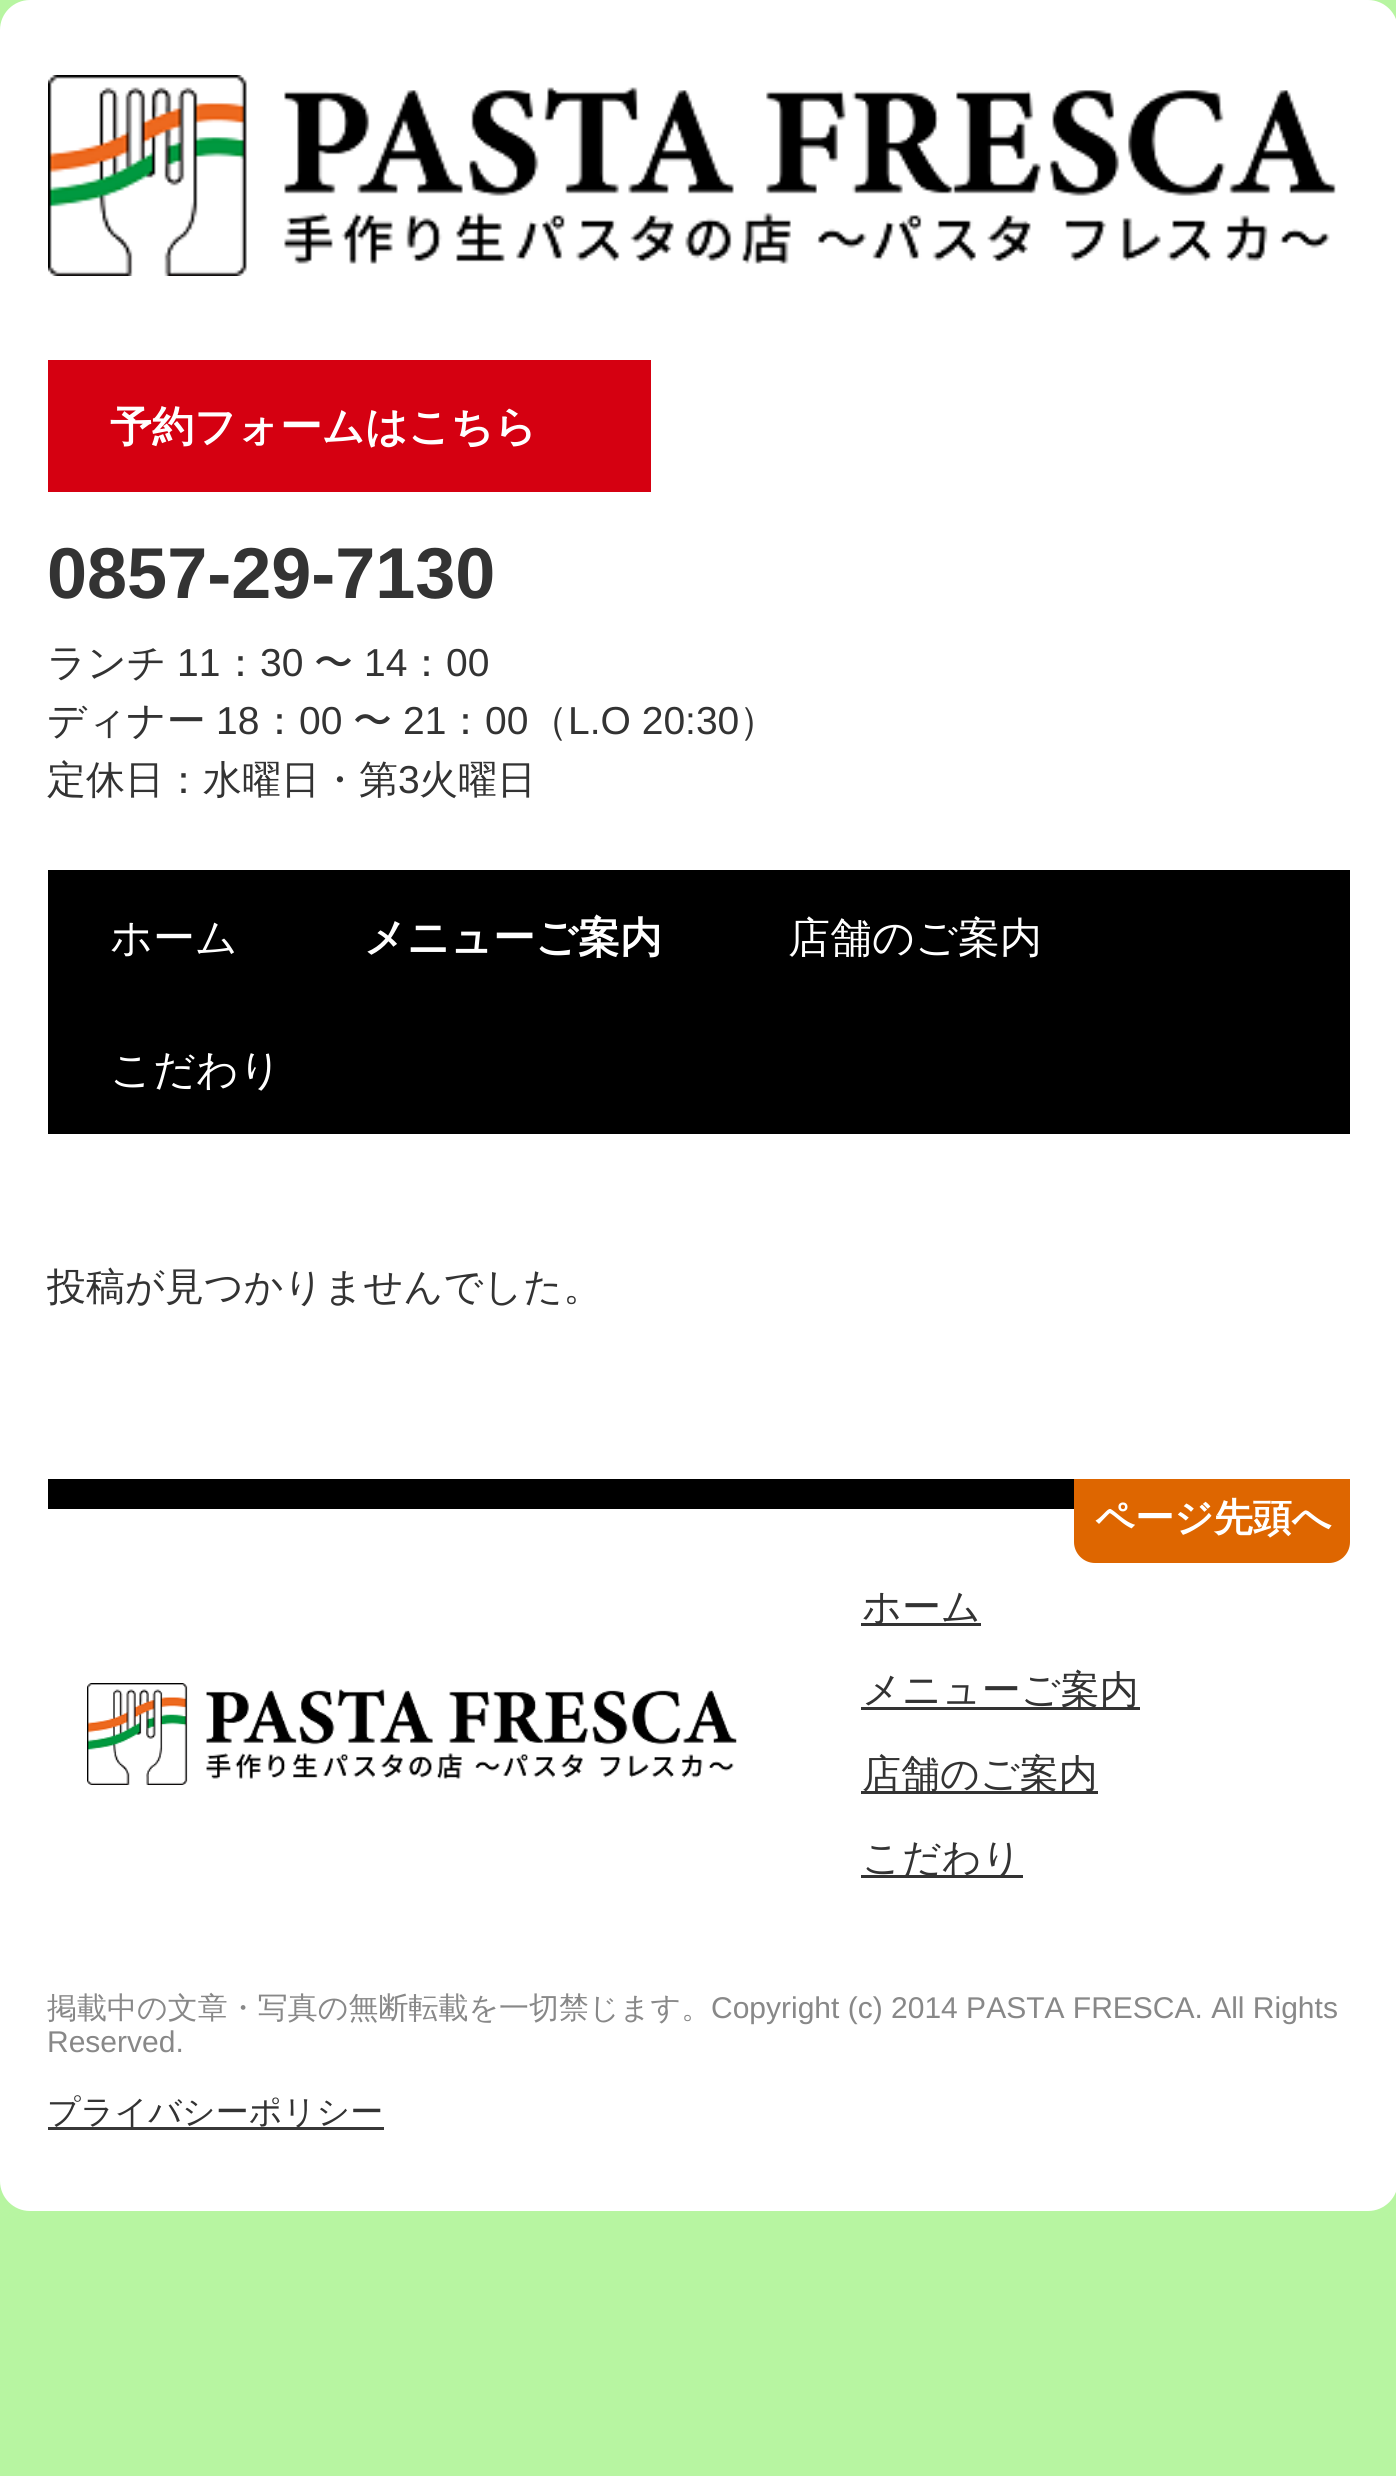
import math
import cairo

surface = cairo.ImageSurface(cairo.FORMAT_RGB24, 1396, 2476)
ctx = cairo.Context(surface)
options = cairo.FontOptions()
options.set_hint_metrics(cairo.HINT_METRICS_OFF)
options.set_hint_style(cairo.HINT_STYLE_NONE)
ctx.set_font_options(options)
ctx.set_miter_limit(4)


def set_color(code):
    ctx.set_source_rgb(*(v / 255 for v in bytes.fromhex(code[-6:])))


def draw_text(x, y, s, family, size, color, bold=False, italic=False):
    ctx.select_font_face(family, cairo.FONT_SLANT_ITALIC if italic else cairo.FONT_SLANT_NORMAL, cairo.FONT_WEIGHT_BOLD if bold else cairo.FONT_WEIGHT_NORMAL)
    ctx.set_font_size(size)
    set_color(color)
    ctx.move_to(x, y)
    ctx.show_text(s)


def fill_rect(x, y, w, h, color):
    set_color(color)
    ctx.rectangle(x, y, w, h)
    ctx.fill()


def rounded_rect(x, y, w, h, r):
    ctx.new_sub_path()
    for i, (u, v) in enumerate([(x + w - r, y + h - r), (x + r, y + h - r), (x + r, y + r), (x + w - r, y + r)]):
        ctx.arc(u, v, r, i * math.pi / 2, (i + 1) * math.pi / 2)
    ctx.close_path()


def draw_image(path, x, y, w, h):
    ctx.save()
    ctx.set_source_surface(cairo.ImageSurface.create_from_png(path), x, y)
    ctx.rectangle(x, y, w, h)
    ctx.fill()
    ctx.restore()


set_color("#b7f5a1")
ctx.paint()
set_color("#ffffff")
rounded_rect(0, 0, 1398, 2211, 30)
ctx.fill()
draw_image("assets/img1.png", 48, 75, 1288, 201)
fill_rect(48, 360, 603, 132, "#d50011")
draw_text(110, 441, "予約フォームはこちら", "WenQuanYi Zen Hei", 42, "#ffffff", bold=True)
draw_text(47, 598, "0857-29-7130", "Liberation Sans", 72, "#333333", bold=True)
draw_text(47, 676, "ランチ", "WenQuanYi Zen Hei Medium", 39, "#333333")
draw_text(177, 676, "11", "Liberation Sans", 39, "#333333")
draw_text(221, 676, "：", "WenQuanYi Zen Hei Medium", 39, "#333333")
draw_text(260, 676, "30", "Liberation Sans", 39, "#333333")
draw_text(314, 676, "〜", "WenQuanYi Zen Hei Medium", 39, "#333333")
draw_text(364, 676, "14", "Liberation Sans", 39, "#333333")
draw_text(407, 676, "：", "WenQuanYi Zen Hei Medium", 39, "#333333")
draw_text(446, 676, "00", "Liberation Sans", 39, "#333333")
draw_text(47, 734, "ディナー", "WenQuanYi Zen Hei Medium", 39, "#333333")
draw_text(216, 734, "18", "Liberation Sans", 39, "#333333")
draw_text(260, 734, "：", "WenQuanYi Zen Hei Medium", 39, "#333333")
draw_text(299, 734, "00", "Liberation Sans", 39, "#333333")
draw_text(353, 734, "〜", "WenQuanYi Zen Hei Medium", 39, "#333333")
draw_text(403, 734, "21", "Liberation Sans", 39, "#333333")
draw_text(446, 734, "：", "WenQuanYi Zen Hei Medium", 39, "#333333")
draw_text(485, 734, "00", "Liberation Sans", 39, "#333333")
draw_text(529, 734, "（", "WenQuanYi Zen Hei Medium", 39, "#333333")
draw_text(568, 734, "L.O 20:30", "Liberation Sans", 39, "#333333")
draw_text(739, 734, "）", "WenQuanYi Zen Hei Medium", 39, "#333333")
draw_text(47, 793, "定休日：水曜日・第", "WenQuanYi Zen Hei Medium", 39, "#333333")
draw_text(398, 793, "3", "Liberation Sans", 39, "#333333")
draw_text(419, 793, "火曜日", "WenQuanYi Zen Hei Medium", 39, "#333333")
fill_rect(48, 870, 1302, 264, "#000000")
draw_text(110, 952, "ホーム", "WenQuanYi Zen Hei Medium", 42, "#ffffff")
draw_text(364, 952, "メニューご案内", "WenQuanYi Zen Hei", 42, "#ffffff", bold=True)
draw_text(788, 952, "店舗のご案内", "WenQuanYi Zen Hei Medium", 42, "#ffffff")
draw_text(110, 1084, "こだわり", "WenQuanYi Zen Hei Medium", 42, "#ffffff")
draw_text(47, 1300, "投稿が見つかりませんでした。", "WenQuanYi Zen Hei Medium", 39, "#333333")
fill_rect(48, 1479, 1026, 30, "#000000")
set_color("#de6600")
ctx.new_path()
ctx.move_to(1074, 1479)
ctx.line_to(1350, 1479)
ctx.line_to(1350, 1542)
ctx.curve_to(1350, 1553.5, 1340.5, 1563, 1329, 1563)
ctx.line_to(1095, 1563)
ctx.curve_to(1083.5, 1563, 1074, 1553.5, 1074, 1542)
ctx.close_path()
ctx.fill()
draw_text(1095, 1531, "ページ先頭へ", "WenQuanYi Zen Hei", 39, "#ffffff", bold=True)
draw_image("assets/img2.png", 87, 1683, 650, 102)
fill_rect(861, 1623, 120, 3, "#333333")
draw_text(862, 1620, "ホーム", "WenQuanYi Zen Hei Medium", 39, "#333333")
fill_rect(861, 1707, 279, 3, "#333333")
draw_text(862, 1703, "メニューご案内", "WenQuanYi Zen Hei Medium", 39, "#333333")
fill_rect(861, 1791, 237, 3, "#333333")
draw_text(862, 1787, "店舗のご案内", "WenQuanYi Zen Hei Medium", 39, "#333333")
fill_rect(861, 1875, 162, 3, "#333333")
draw_text(862, 1871, "こだわり", "WenQuanYi Zen Hei Medium", 39, "#333333")
draw_text(47, 2018, "掲載中の文章・写真の無断転載を一切禁じます。", "WenQuanYi Zen Hei Medium", 30, "#888888")
draw_text(711, 2018, "Copyright (c) 2014 PASTA FRESCA. All Rights", "Liberation Sans", 30, "#888888")
draw_text(47, 2052, "Reserved.", "Liberation Sans", 30, "#888888")
fill_rect(48, 2127, 336, 3, "#383838")
draw_text(47, 2123, "プライバシーポリシー", "WenQuanYi Zen Hei Medium", 33, "#333333")
surface.write_to_png("output.png")
